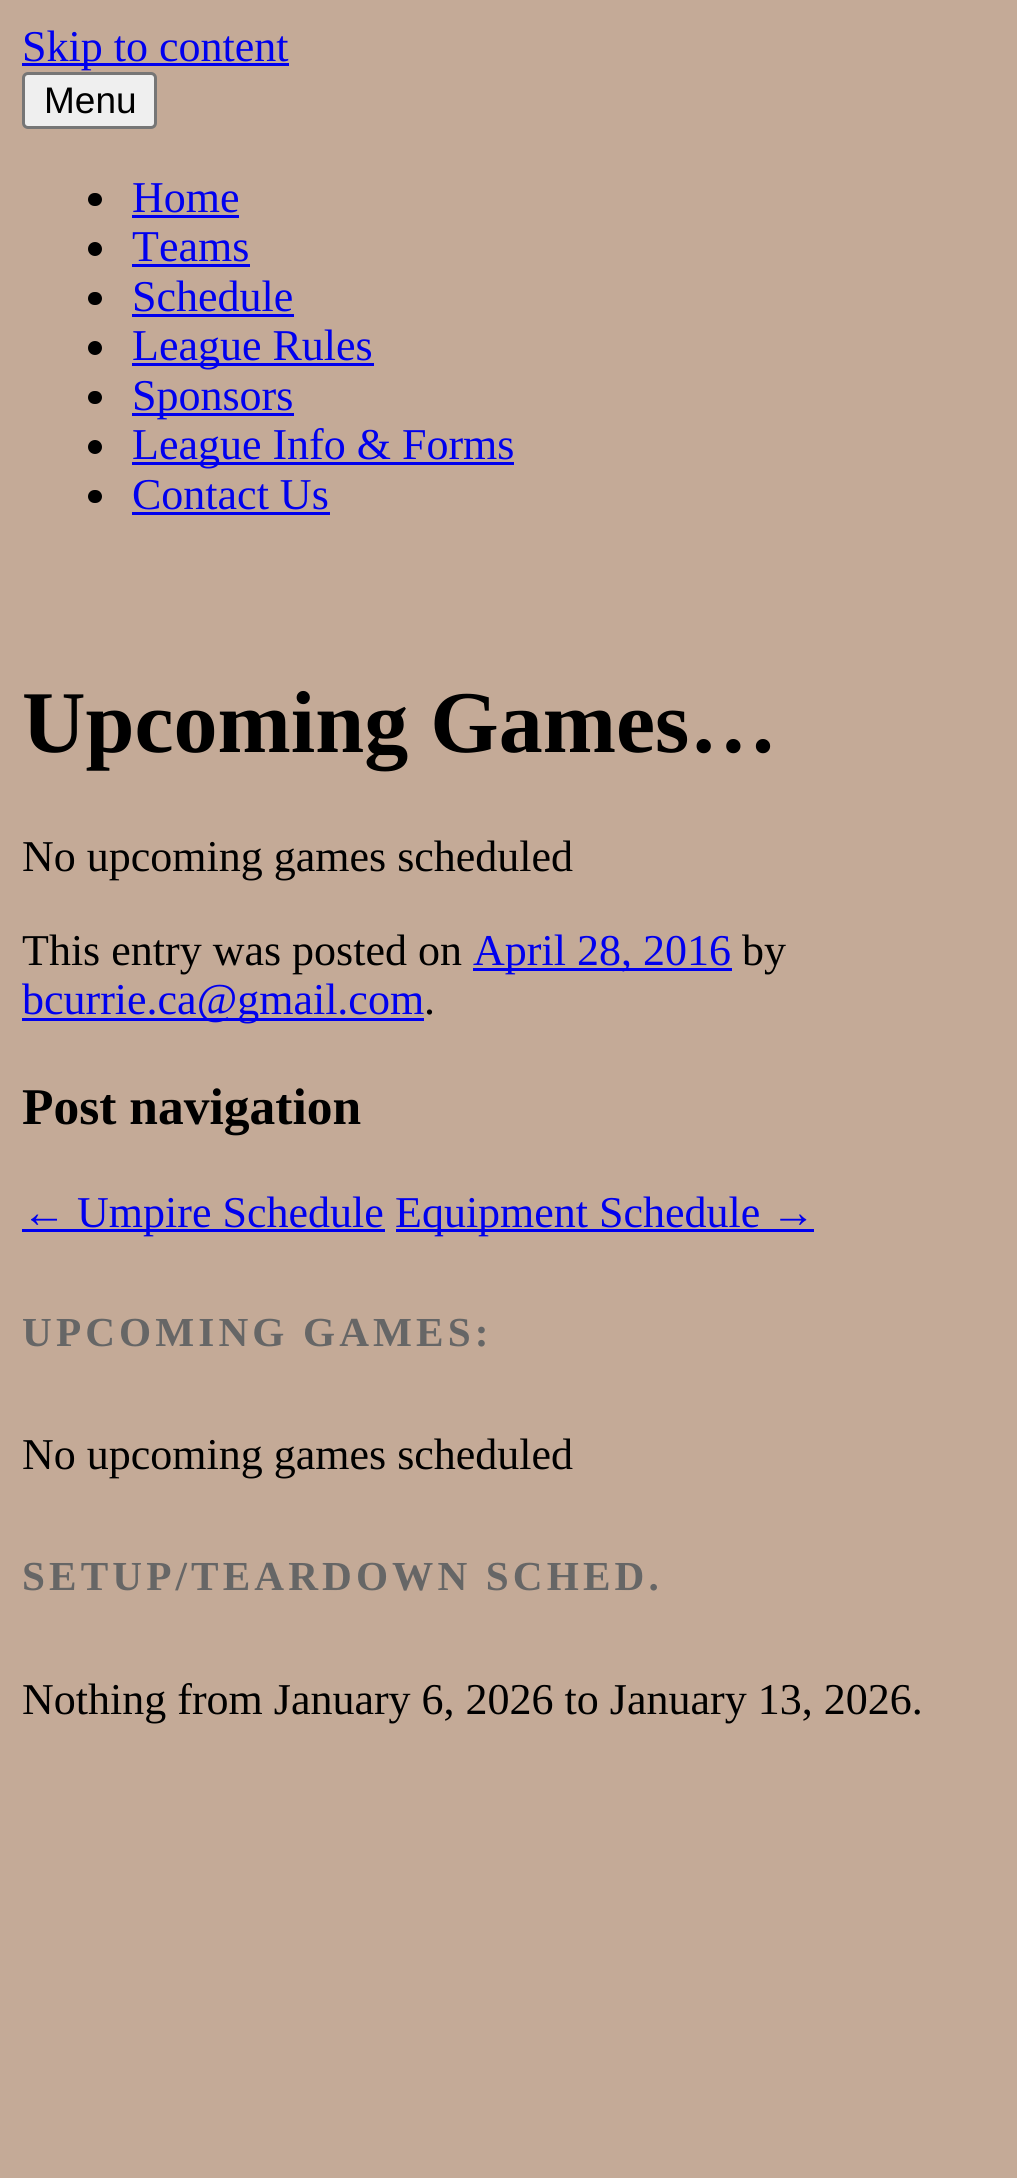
import math
import cairo

surface = cairo.ImageSurface(cairo.FORMAT_RGB24, 1017, 2178)
ctx = cairo.Context(surface)
options = cairo.FontOptions()
options.set_hint_metrics(cairo.HINT_METRICS_OFF)
options.set_hint_style(cairo.HINT_STYLE_NONE)
ctx.set_font_options(options)
ctx.set_miter_limit(4)


def set_color(code):
    ctx.set_source_rgb(*(v / 255 for v in bytes.fromhex(code[-6:])))


def draw_text(x, y, s, family, size, color, bold=False, italic=False):
    ctx.select_font_face(family, cairo.FONT_SLANT_ITALIC if italic else cairo.FONT_SLANT_NORMAL, cairo.FONT_WEIGHT_BOLD if bold else cairo.FONT_WEIGHT_NORMAL)
    ctx.set_font_size(size)
    set_color(color)
    ctx.move_to(x, y)
    ctx.show_text(s)


def draw_spaced(x, y, s, letter, word):
    ctx.move_to(x, y)
    for ch in s:
        ctx.show_text(ch)
        ctx.rel_move_to(letter + word * (ch == ' '), 0)


def fill_rect(x, y, w, h, color):
    set_color(color)
    ctx.rectangle(x, y, w, h)
    ctx.fill()


def rounded_rect(x, y, w, h, r):
    ctx.new_sub_path()
    for i, (u, v) in enumerate([(x + w - r, y + h - r), (x + r, y + h - r), (x + r, y + r), (x + w - r, y + r)]):
        ctx.arc(u, v, r, i * math.pi / 2, (i + 1) * math.pi / 2)
    ctx.close_path()


set_color("#c4aa97")
ctx.paint()
fill_rect(22, 63, 267, 3, "#0000ee")
draw_text(22, 61, "Skip to content", "Liberation Serif", 44, "#0000ee")
set_color("#efefef")
rounded_rect(23.5, 73.5, 132, 54, 4.5)
ctx.fill_preserve()
set_color("#767676")
ctx.set_line_width(3)
ctx.stroke()
draw_text(44, 113, "Menu", "Liberation Sans", 37, "#000000")
rounded_rect(88, 193, 14, 13, 6.5)
ctx.fill()
draw_text(132, 212, "Home", "Liberation Serif", 44, "#0000ee")
fill_rect(132, 215, 107, 3, "#0000ee")
set_color("#000000")
ctx.new_path()
ctx.arc(95, 249, 7, 0, 2 * math.pi)
ctx.fill()
draw_text(132, 261, "Teams", "Liberation Serif", 44, "#0000ee")
fill_rect(132, 264, 118, 3, "#0000ee")
set_color("#000000")
rounded_rect(88, 292, 14, 13, 6.5)
ctx.fill()
draw_text(132, 311, "Schedule", "Liberation Serif", 44, "#0000ee")
fill_rect(132, 314, 162, 3, "#0000ee")
set_color("#000000")
ctx.new_path()
ctx.arc(95, 348, 7, 0, 2 * math.pi)
ctx.fill()
fill_rect(132, 363, 242, 3, "#0000ee")
draw_text(132, 360, "League Rules", "Liberation Serif", 44, "#0000ee")
set_color("#000000")
rounded_rect(88, 391, 14, 13, 6.5)
ctx.fill()
fill_rect(132, 413, 162, 3, "#0000ee")
draw_text(132, 410, "Sponsors", "Liberation Serif", 44, "#0000ee")
set_color("#000000")
ctx.new_path()
ctx.arc(95, 447, 7, 0, 2 * math.pi)
ctx.fill()
fill_rect(132, 462, 382, 3, "#0000ee")
draw_text(132, 459, "League Info & Forms", "Liberation Serif", 44, "#0000ee")
set_color("#000000")
rounded_rect(88, 490, 14, 13, 6.5)
ctx.fill()
draw_text(132, 509, "Contact Us", "Liberation Serif", 44, "#0000ee")
fill_rect(132, 512, 198, 3, "#0000ee")
draw_text(22, 752, "Upcoming Games…", "Liberation Serif", 88, "#000000", bold=True)
draw_text(22, 871, "No upcoming games scheduled", "Liberation Serif", 44, "#000000")
draw_text(22, 965, "This entry was posted on", "Liberation Serif", 44, "#000000")
fill_rect(473, 968, 259, 3, "#0000ee")
draw_text(473, 965, "April 28, 2016", "Liberation Serif", 44, "#0000ee")
draw_text(742, 965, "by", "Liberation Serif", 44, "#000000")
fill_rect(22, 1018, 402, 3, "#0000ee")
draw_text(22, 1014, "bcurrie.ca@gmail.com", "Liberation Serif", 44, "#0000ee")
draw_text(424, 1014, ".", "Liberation Serif", 44, "#000000")
draw_text(22, 1124, "Post navigation", "Liberation Serif", 51.5, "#000000", bold=True)
fill_rect(22, 1229, 363, 3, "#0000ee")
draw_text(22, 1227, "← Umpire Schedule", "Liberation Serif", 44, "#0000ee")
fill_rect(396, 1229, 418, 3, "#0000ee")
draw_text(395, 1227, "Equipment Schedule →", "Liberation Serif", 44, "#0000ee")
ctx.select_font_face("Liberation Serif", cairo.FONT_SLANT_NORMAL, cairo.FONT_WEIGHT_BOLD)
ctx.set_font_size(41.25)
set_color("#666666")
draw_spaced(22, 1346, "UPCOMING GAMES:", 4.1, 0)
draw_text(22, 1469, "No upcoming games scheduled", "Liberation Serif", 44, "#000000")
ctx.select_font_face("Liberation Serif", cairo.FONT_SLANT_NORMAL, cairo.FONT_WEIGHT_BOLD)
ctx.set_font_size(41.25)
set_color("#666666")
draw_spaced(22, 1590, "SETUP/TEARDOWN SCHED.", 4.1, 0)
draw_text(22, 1714, "Nothing from January 6, 2026 to January 13, 2026.", "Liberation Serif", 44, "#000000")
surface.write_to_png("output.png")
